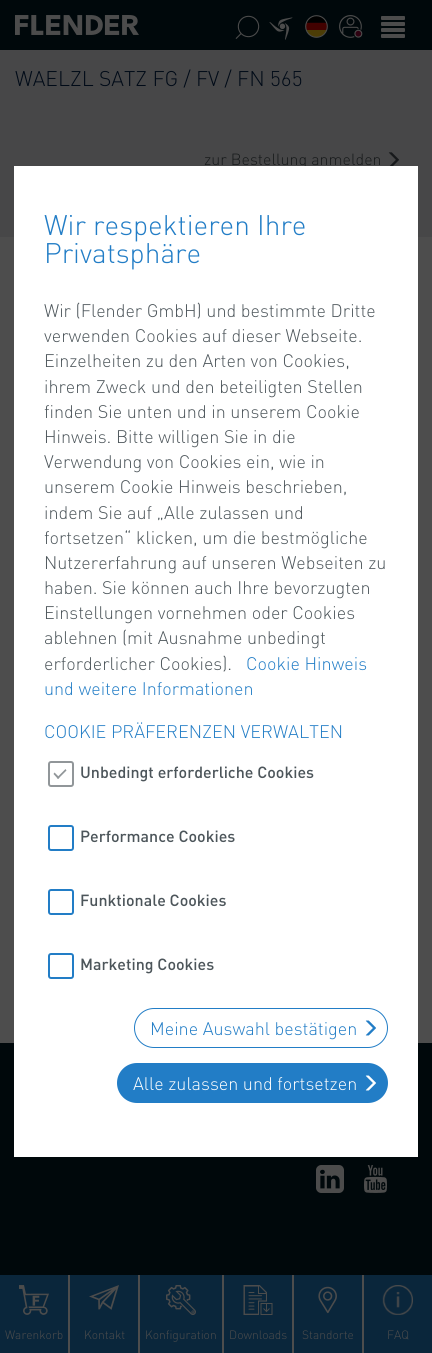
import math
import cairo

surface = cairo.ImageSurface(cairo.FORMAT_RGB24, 432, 1353)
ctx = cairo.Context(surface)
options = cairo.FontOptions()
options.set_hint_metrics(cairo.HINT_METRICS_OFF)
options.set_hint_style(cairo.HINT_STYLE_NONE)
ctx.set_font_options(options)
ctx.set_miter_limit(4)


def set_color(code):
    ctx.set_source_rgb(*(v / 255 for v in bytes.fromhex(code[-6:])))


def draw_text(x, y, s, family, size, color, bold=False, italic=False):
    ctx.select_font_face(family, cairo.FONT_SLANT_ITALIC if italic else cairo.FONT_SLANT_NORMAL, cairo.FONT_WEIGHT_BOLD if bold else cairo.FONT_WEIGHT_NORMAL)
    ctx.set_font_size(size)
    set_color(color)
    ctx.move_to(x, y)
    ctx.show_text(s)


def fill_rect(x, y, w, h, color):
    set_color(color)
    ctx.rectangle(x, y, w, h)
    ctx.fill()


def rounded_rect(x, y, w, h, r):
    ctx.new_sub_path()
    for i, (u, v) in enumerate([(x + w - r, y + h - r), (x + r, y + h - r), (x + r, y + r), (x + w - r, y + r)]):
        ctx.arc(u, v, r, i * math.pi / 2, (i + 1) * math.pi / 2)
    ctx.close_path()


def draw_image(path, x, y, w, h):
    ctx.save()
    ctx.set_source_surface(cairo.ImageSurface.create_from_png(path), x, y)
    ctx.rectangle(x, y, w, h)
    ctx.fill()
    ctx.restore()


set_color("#4d4d4d")
ctx.paint()
fill_rect(0, 50, 432, 187, "#474748")
draw_text(15, 86, "WAELZL SATZ FG / FV / FN 565", "din Light", 21, "#000a17")
draw_text(204, 165, "zur Bestellung anmelden", "din Light", 16, "#171a1b")
draw_image("assets/img1.png", 388, 152, 11, 14)
fill_rect(0, 1043, 432, 232, "#00080b")
fill_rect(14, 166, 404, 991, "#ffffff")
draw_text(44, 235, "Wir respektieren Ihre", "din Light", 28, "#227dc6")
draw_text(44, 263, "Privatsphäre", "din Light", 28, "#227dc6")
draw_text(44, 317, "Wir (Flender GmbH) und bestimmte Dritte", "din Light", 18, "#4c555a")
draw_text(44, 342, "verwenden Cookies auf dieser Webseite.", "din Light", 18, "#4c555a")
draw_text(44, 367, "Einzelheiten zu den Arten von Cookies,", "din Light", 18, "#4c555a")
draw_text(44, 393, "ihrem Zweck und den beteiligten Stellen", "din Light", 18, "#4c555a")
draw_text(44, 418, "finden Sie unten und in unserem Cookie", "din Light", 18, "#4c555a")
draw_text(44, 443, "Hinweis. Bitte willigen Sie in die", "din Light", 18, "#4c555a")
draw_text(44, 468, "Verwendung von Cookies ein, wie in", "din Light", 18, "#4c555a")
draw_text(44, 493, "unserem Cookie Hinweis beschrieben,", "din Light", 18, "#4c555a")
draw_text(44, 519, "indem Sie auf „Alle zulassen und", "din Light", 18, "#4c555a")
draw_text(44, 544, "fortsetzen“ klicken, um die bestmögliche", "din Light", 18, "#4c555a")
draw_text(44, 569, "Nutzererfahrung auf unseren Webseiten zu", "din Light", 18, "#4c555a")
draw_text(44, 594, "haben. Sie können auch Ihre bevorzugten", "din Light", 18, "#4c555a")
draw_text(44, 619, "Einstellungen vornehmen oder Cookies", "din Light", 18, "#4c555a")
draw_text(44, 644, "ablehnen (mit Ausnahme unbedingt", "din Light", 18, "#4c555a")
draw_text(44, 670, "erforderlicher Cookies).", "din Light", 18, "#4c555a")
draw_text(246, 670, "Cookie Hinweis", "din Light", 18, "#227dc6")
draw_text(44, 695, "und weitere Informationen", "din Light", 18, "#227dc6")
draw_text(44, 738, "COOKIE PRÄFERENZEN VERWALTEN", "din Light", 18, "#227dc6")
rounded_rect(49, 762, 24, 24, 2)
set_color("#919699")
ctx.stroke()
draw_text(80, 778, "Unbedingt erforderliche Cookies", "din Medium", 16, "#4c555a")
set_color("#919699")
ctx.new_path()
ctx.move_to(57, 777.5)
ctx.line_to(65.5, 769)
ctx.line_to(66.5, 770.5)
ctx.line_to(58, 779)
ctx.close_path()
ctx.fill()
ctx.new_path()
ctx.move_to(53.5, 774)
ctx.line_to(54.5, 772.5)
ctx.line_to(59.5, 777.5)
ctx.line_to(58, 779)
ctx.close_path()
ctx.fill()
rounded_rect(49, 826, 24, 24, 2)
set_color("#227dc6")
ctx.stroke()
draw_text(80, 842, "Performance Cookies", "din Medium", 16, "#4c555a")
rounded_rect(49, 890, 24, 24, 2)
set_color("#227dc6")
ctx.stroke()
draw_text(80, 906, "Funktionale Cookies", "din Medium", 16, "#4c555a")
rounded_rect(49, 954, 24, 24, 2)
set_color("#227dc6")
ctx.stroke()
draw_text(80, 970, "Marketing Cookies", "din Medium", 16, "#4c555a")
rounded_rect(134.5, 1008.5, 253, 39, 19.5)
set_color("#227dc6")
ctx.set_line_width(1)
ctx.stroke()
draw_text(150, 1035, "Meine Auswahl bestätigen", "din Light", 18, "#227dc6")
draw_image("assets/img2.png", 365, 1020, 11, 16)
rounded_rect(117, 1063, 271, 40, 20)
ctx.fill()
draw_text(133, 1090, "Alle zulassen und fortsetzen", "din Light", 18, "#ffffff")
draw_image("assets/img3.png", 365, 1075, 11, 16)
draw_image("assets/img4.png", 316, 1165, 28, 28)
draw_image("assets/img5.png", 364, 1165, 23, 28)
fill_rect(0, 0, 432, 50, "#00080b")
draw_image("assets/img6.png", 15, 15, 124, 20)
draw_image("assets/img7.png", 235, 15, 25, 24)
draw_image("assets/img8.png", 269, 17, 24, 23)
draw_image("assets/img9.png", 305, 15, 23, 23)
draw_image("assets/img10.png", 339, 15, 24, 23)
draw_image("assets/img11.png", 381, 16, 24, 22)
fill_rect(0, 1275, 68, 78, "#0a263b")
draw_image("assets/img12.png", 19, 1285, 30, 30)
draw_text(5, 1339, "Warenkorb", "din Light", 12, "#4d4d4d")
fill_rect(70, 1275, 68, 78, "#0a263b")
draw_image("assets/img13.png", 89, 1285, 30, 25)
draw_text(84, 1339, "Kontakt", "din Light", 12, "#4d4d4d")
fill_rect(140, 1275, 82, 78, "#0a263b")
draw_image("assets/img14.png", 166, 1285, 30, 30)
draw_text(145, 1339, "Konfiguration", "din Light", 12, "#4d4d4d")
fill_rect(224, 1275, 68, 78, "#0a263b")
draw_image("assets/img15.png", 243, 1285, 30, 30)
draw_text(229, 1339, "Downloads", "din Light", 12, "#4d4d4d")
fill_rect(294, 1275, 68, 78, "#0a263b")
draw_image("assets/img16.png", 318, 1286, 19, 28)
draw_text(302, 1339, "Standorte", "din Light", 12, "#4d4d4d")
fill_rect(364, 1275, 68, 78, "#0a263b")
draw_image("assets/img17.png", 382, 1285, 31, 30)
draw_text(387, 1339, "FAQ", "din Light", 12, "#4d4d4d")
surface.write_to_png("output.png")
